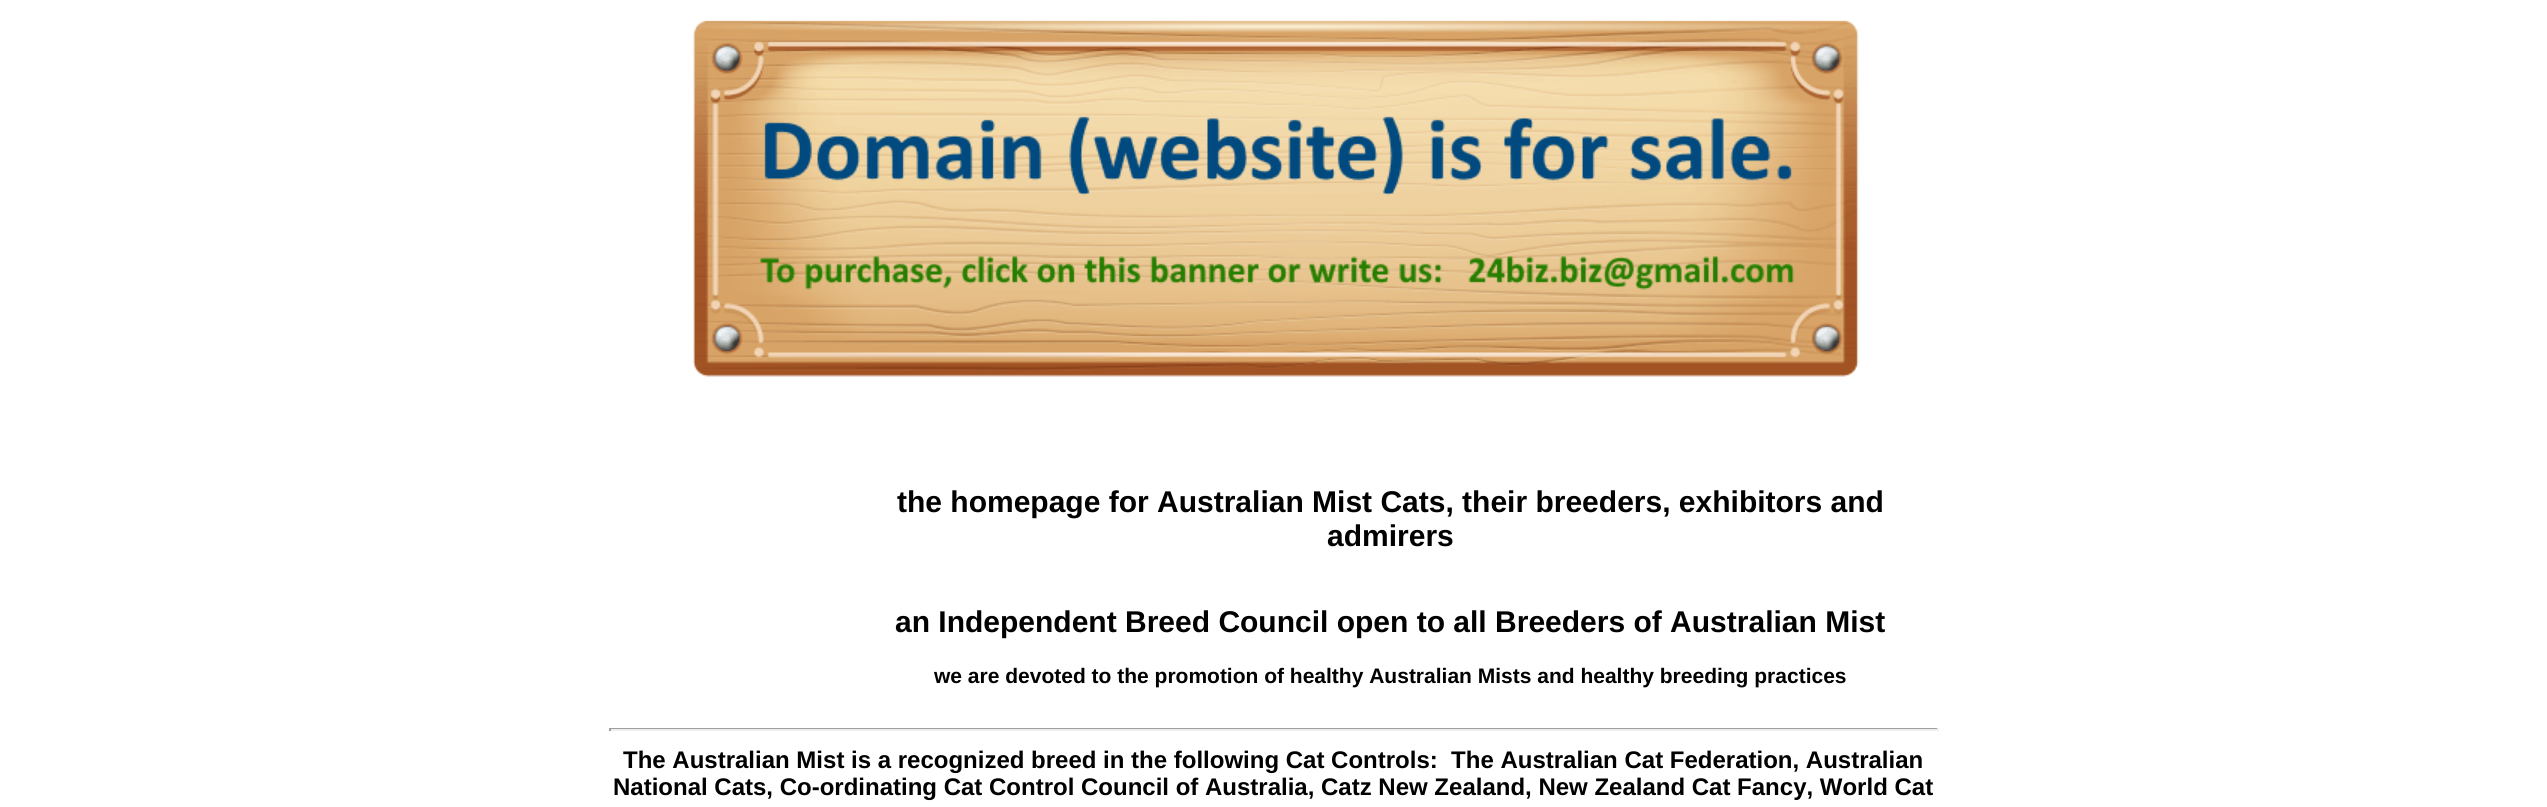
import math
import cairo

surface = cairo.ImageSurface(cairo.FORMAT_RGB24, 2547, 807)
ctx = cairo.Context(surface)
options = cairo.FontOptions()
options.set_hint_metrics(cairo.HINT_METRICS_OFF)
options.set_hint_style(cairo.HINT_STYLE_NONE)
ctx.set_font_options(options)
ctx.set_miter_limit(4)


def set_color(code):
    ctx.set_source_rgb(*(v / 255 for v in bytes.fromhex(code[-6:])))


def draw_text(x, y, s, family, size, color, bold=False, italic=False):
    ctx.select_font_face(family, cairo.FONT_SLANT_ITALIC if italic else cairo.FONT_SLANT_NORMAL, cairo.FONT_WEIGHT_BOLD if bold else cairo.FONT_WEIGHT_NORMAL)
    ctx.set_font_size(size)
    set_color(color)
    ctx.move_to(x, y)
    ctx.show_text(s)


def fill_rect(x, y, w, h, color):
    set_color(color)
    ctx.rectangle(x, y, w, h)
    ctx.fill()


def draw_image(path, x, y, w, h):
    ctx.save()
    ctx.set_source_surface(cairo.ImageSurface.create_from_png(path), x, y)
    ctx.rectangle(x, y, w, h)
    ctx.fill()
    ctx.restore()


set_color("#ffffff")
ctx.paint()
draw_image("assets/img1.png", 692, 20, 1167, 357)
draw_text(897, 512, "the homepage for Australian Mist Cats, their breeders, exhibitors and", "Liberation Sans", 30, "#000000", bold=True)
draw_text(1327, 546, "admirers", "Liberation Sans", 30, "#000000", bold=True)
draw_text(895, 632, "an Independent Breed Council open to all Breeders of Australian Mist", "Liberation Sans", 30, "#000000", bold=True)
draw_text(934, 683, "we are devoted to the promotion of healthy Australian Mists and healthy breeding practices", "Liberation Sans", 21, "#000000", bold=True)
fill_rect(609, 728, 1329, 1, "#9f9f9f")
fill_rect(1937, 728, 2, 3, "#eeeeee")
fill_rect(609, 729, 1329, 2, "#eeeeee")
fill_rect(609, 728, 2, 3, "#9f9f9f")
draw_text(623, 768, "The Australian Mist is a recognized breed in the following Cat Controls:  The Australian Cat Federation, Australian", "Liberation Sans", 24, "#000000", bold=True)
draw_text(613, 795, "National Cats, Co-ordinating Cat Control Council of Australia, Catz New Zealand, New Zealand Cat Fancy, World Cat", "Liberation Sans", 24, "#000000", bold=True)
surface.write_to_png("output.png")
